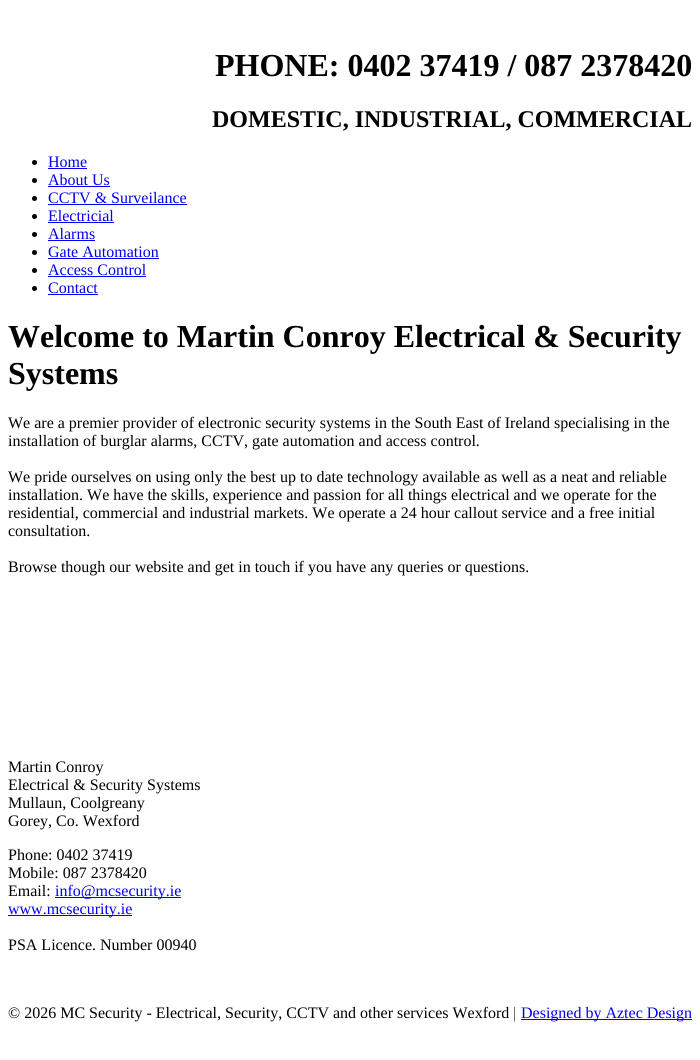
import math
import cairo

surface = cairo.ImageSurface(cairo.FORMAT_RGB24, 700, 1060)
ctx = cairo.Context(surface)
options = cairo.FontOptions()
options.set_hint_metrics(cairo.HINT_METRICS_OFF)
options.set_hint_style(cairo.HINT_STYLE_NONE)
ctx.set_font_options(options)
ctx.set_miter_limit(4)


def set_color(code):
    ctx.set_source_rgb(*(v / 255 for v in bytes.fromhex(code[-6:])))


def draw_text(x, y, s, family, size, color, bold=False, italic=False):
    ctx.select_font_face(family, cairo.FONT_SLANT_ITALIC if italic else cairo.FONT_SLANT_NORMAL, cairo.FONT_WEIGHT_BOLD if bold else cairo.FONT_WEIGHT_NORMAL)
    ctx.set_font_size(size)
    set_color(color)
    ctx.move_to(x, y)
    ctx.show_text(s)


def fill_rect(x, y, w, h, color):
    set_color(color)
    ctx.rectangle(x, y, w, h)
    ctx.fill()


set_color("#ffffff")
ctx.paint()
draw_text(215, 76, "PHONE: 0402 37419 / 087 2378420", "Liberation Serif", 32, "#000000", bold=True)
draw_text(212, 127, "DOMESTIC, INDUSTRIAL, COMMERCIAL", "Liberation Serif", 24, "#000000", bold=True)
ctx.new_path()
ctx.arc(34.5, 162.5, 2.5, 0, 2 * math.pi)
ctx.fill()
draw_text(48, 167, "Home", "Liberation Serif", 16, "#0000ee")
fill_rect(48, 168, 39, 1, "#0000ee")
set_color("#000000")
ctx.new_path()
ctx.arc(34.5, 180.5, 2.5, 0, 2 * math.pi)
ctx.fill()
draw_text(48, 185, "About Us", "Liberation Serif", 16, "#0000ee")
fill_rect(48, 186, 62, 1, "#0000ee")
set_color("#000000")
ctx.new_path()
ctx.arc(34.5, 198.5, 2.5, 0, 2 * math.pi)
ctx.fill()
draw_text(48, 203, "CCTV & Surveilance", "Liberation Serif", 16, "#0000ee")
fill_rect(48, 204, 139, 1, "#0000ee")
set_color("#000000")
ctx.new_path()
ctx.arc(34.5, 216.5, 2.5, 0, 2 * math.pi)
ctx.fill()
draw_text(48, 221, "Electricial", "Liberation Serif", 16, "#0000ee")
fill_rect(48, 222, 66, 1, "#0000ee")
set_color("#000000")
ctx.new_path()
ctx.arc(34.5, 234.5, 2.5, 0, 2 * math.pi)
ctx.fill()
draw_text(48, 239, "Alarms", "Liberation Serif", 16, "#0000ee")
fill_rect(48, 240, 47, 1, "#0000ee")
set_color("#000000")
ctx.new_path()
ctx.arc(34.5, 252.5, 2.5, 0, 2 * math.pi)
ctx.fill()
draw_text(48, 257, "Gate Automation", "Liberation Serif", 16, "#0000ee")
fill_rect(48, 258, 111, 1, "#0000ee")
set_color("#000000")
ctx.new_path()
ctx.arc(34.5, 270.5, 2.5, 0, 2 * math.pi)
ctx.fill()
draw_text(48, 275, "Access Control", "Liberation Serif", 16, "#0000ee")
fill_rect(48, 276, 98, 1, "#0000ee")
set_color("#000000")
ctx.new_path()
ctx.arc(34.5, 288.5, 2.5, 0, 2 * math.pi)
ctx.fill()
draw_text(48, 293, "Contact", "Liberation Serif", 16, "#0000ee")
fill_rect(48, 294, 50, 1, "#0000ee")
draw_text(8, 347, "Welcome to Martin Conroy Electrical & Security", "Liberation Serif", 32, "#000000", bold=True)
draw_text(8, 384, "Systems", "Liberation Serif", 32, "#000000", bold=True)
draw_text(8, 428, "We are a premier provider of electronic security systems in the South East of Ireland specialising in the", "Liberation Serif", 16, "#000000")
draw_text(8, 446, "installation of burglar alarms, CCTV, gate automation and access control.", "Liberation Serif", 16, "#000000")
draw_text(8, 482, "We pride ourselves on using only the best up to date technology available as well as a neat and reliable", "Liberation Serif", 16, "#000000")
draw_text(8, 500, "installation. We have the skills, experience and passion for all things electrical and we operate for the", "Liberation Serif", 16, "#000000")
draw_text(8, 518, "residential, commercial and industrial markets. We operate a 24 hour callout service and a free initial", "Liberation Serif", 16, "#000000")
draw_text(8, 536, "consultation.", "Liberation Serif", 16, "#000000")
draw_text(8, 572, "Browse though our website and get in touch if you have any queries or questions.", "Liberation Serif", 16, "#000000")
draw_text(8, 772, "Martin Conroy", "Liberation Serif", 16, "#000000")
draw_text(8, 790, "Electrical & Security Systems", "Liberation Serif", 16, "#000000")
draw_text(8, 808, "Mullaun, Coolgreany", "Liberation Serif", 16, "#000000")
draw_text(8, 826, "Gorey, Co. Wexford", "Liberation Serif", 16, "#000000")
draw_text(8, 860, "Phone: 0402 37419", "Liberation Serif", 16, "#000000")
draw_text(8, 878, "Mobile: 087 2378420", "Liberation Serif", 16, "#000000")
draw_text(8, 896, "Email:", "Liberation Serif", 16, "#000000")
fill_rect(55, 897, 126, 1, "#0000ee")
draw_text(55, 896, "info@mcsecurity.ie", "Liberation Serif", 16, "#0000ee")
fill_rect(8, 915, 124, 1, "#0000ee")
draw_text(8, 914, "www.mcsecurity.ie", "Liberation Serif", 16, "#0000ee")
draw_text(8, 950, "PSA Licence. Number 00940", "Liberation Serif", 16, "#000000")
draw_text(8, 1018, "© 2026 MC Security - Electrical, Security, CCTV and other services Wexford |", "Liberation Serif", 16, "#000000")
fill_rect(521, 1019, 171, 1, "#0000ee")
draw_text(521, 1018, "Designed by Aztec Design", "Liberation Serif", 16, "#0000ee")
surface.write_to_png("output.png")
